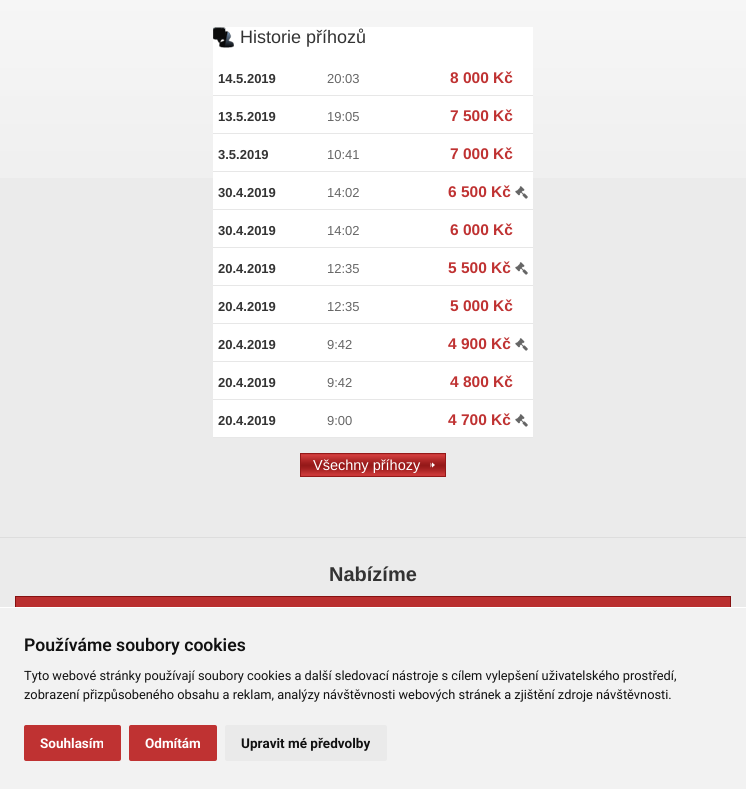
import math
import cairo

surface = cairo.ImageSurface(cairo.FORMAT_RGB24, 746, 789)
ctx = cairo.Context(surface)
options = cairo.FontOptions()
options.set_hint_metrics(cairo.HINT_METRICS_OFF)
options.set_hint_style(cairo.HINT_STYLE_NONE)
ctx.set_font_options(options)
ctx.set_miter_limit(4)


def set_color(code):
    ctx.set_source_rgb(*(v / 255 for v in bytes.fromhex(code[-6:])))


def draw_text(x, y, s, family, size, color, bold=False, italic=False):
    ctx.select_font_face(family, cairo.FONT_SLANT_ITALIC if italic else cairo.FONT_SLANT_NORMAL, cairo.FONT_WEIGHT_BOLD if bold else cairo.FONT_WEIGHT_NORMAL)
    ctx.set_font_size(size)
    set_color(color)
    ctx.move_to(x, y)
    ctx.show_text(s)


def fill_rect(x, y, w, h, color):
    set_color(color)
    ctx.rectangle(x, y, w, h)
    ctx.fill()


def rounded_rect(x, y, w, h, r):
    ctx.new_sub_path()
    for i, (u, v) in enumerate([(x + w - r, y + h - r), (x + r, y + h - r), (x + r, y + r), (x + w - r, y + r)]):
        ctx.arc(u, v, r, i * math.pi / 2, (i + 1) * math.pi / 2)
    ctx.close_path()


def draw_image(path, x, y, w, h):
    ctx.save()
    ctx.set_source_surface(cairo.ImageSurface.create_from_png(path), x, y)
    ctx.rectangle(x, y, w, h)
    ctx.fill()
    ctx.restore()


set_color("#ebebeb")
ctx.paint()
draw_image("assets/img1.png", 0, 0, 746, 178)
fill_rect(213, 27, 320, 410, "#ffffff")
draw_image("assets/img2.png", 213, 27, 21, 21)
draw_text(240, 43, "Historie příhozů", "Liberation Sans", 18, "#333333")
fill_rect(213, 95, 320, 1, "#e7e7e7")
draw_text(218, 83, "14.5.2019", "Liberation Sans", 13, "#333333", bold=True)
draw_text(327, 83, "20:03", "Liberation Sans", 13, "#666666")
draw_text(450, 83, "8 000 Kč", "Liberation Sans", 15.5, "#bf3232", bold=True)
fill_rect(213, 133, 320, 1, "#e7e7e7")
draw_text(218, 121, "13.5.2019", "Liberation Sans", 13, "#333333", bold=True)
draw_text(327, 121, "19:05", "Liberation Sans", 13, "#666666")
draw_text(450, 121, "7 500 Kč", "Liberation Sans", 15.5, "#bf3232", bold=True)
fill_rect(213, 171, 320, 1, "#e7e7e7")
draw_text(218, 159, "3.5.2019", "Liberation Sans", 13, "#333333", bold=True)
draw_text(327, 159, "10:41", "Liberation Sans", 13, "#666666")
draw_text(450, 159, "7 000 Kč", "Liberation Sans", 15.5, "#bf3232", bold=True)
fill_rect(213, 209, 320, 1, "#e7e7e7")
draw_text(218, 197, "30.4.2019", "Liberation Sans", 13, "#333333", bold=True)
draw_text(327, 197, "14:02", "Liberation Sans", 13, "#666666")
draw_text(448, 197, "6 500 Kč", "Liberation Sans", 15.5, "#bf3232", bold=True)
draw_image("assets/img3.png", 515, 186, 13, 13)
fill_rect(213, 247, 320, 1, "#e7e7e7")
draw_text(218, 235, "30.4.2019", "Liberation Sans", 13, "#333333", bold=True)
draw_text(327, 235, "14:02", "Liberation Sans", 13, "#666666")
draw_text(450, 235, "6 000 Kč", "Liberation Sans", 15.5, "#bf3232", bold=True)
fill_rect(213, 285, 320, 1, "#e7e7e7")
draw_text(218, 273, "20.4.2019", "Liberation Sans", 13, "#333333", bold=True)
draw_text(327, 273, "12:35", "Liberation Sans", 13, "#666666")
draw_text(448, 273, "5 500 Kč", "Liberation Sans", 15.5, "#bf3232", bold=True)
draw_image("assets/img3.png", 515, 262, 13, 13)
fill_rect(213, 323, 320, 1, "#e7e7e7")
draw_text(218, 311, "20.4.2019", "Liberation Sans", 13, "#333333", bold=True)
draw_text(327, 311, "12:35", "Liberation Sans", 13, "#666666")
draw_text(450, 311, "5 000 Kč", "Liberation Sans", 15.5, "#bf3232", bold=True)
fill_rect(213, 361, 320, 1, "#e7e7e7")
draw_text(218, 349, "20.4.2019", "Liberation Sans", 13, "#333333", bold=True)
draw_text(327, 349, "9:42", "Liberation Sans", 13, "#666666")
draw_text(448, 349, "4 900 Kč", "Liberation Sans", 15.5, "#bf3232", bold=True)
draw_image("assets/img3.png", 515, 338, 13, 13)
fill_rect(213, 399, 320, 1, "#e7e7e7")
draw_text(218, 387, "20.4.2019", "Liberation Sans", 13, "#333333", bold=True)
draw_text(327, 387, "9:42", "Liberation Sans", 13, "#666666")
draw_text(450, 387, "4 800 Kč", "Liberation Sans", 15.5, "#bf3232", bold=True)
fill_rect(213, 437, 320, 1, "#e7e7e7")
draw_text(218, 425, "20.4.2019", "Liberation Sans", 13, "#333333", bold=True)
draw_text(327, 425, "9:00", "Liberation Sans", 13, "#666666")
draw_text(448, 425, "4 700 Kč", "Liberation Sans", 15.5, "#bf3232", bold=True)
draw_image("assets/img3.png", 515, 414, 13, 13)
fill_rect(301, 454, 144, 22, "#c93838")
draw_image("assets/img4.png", 301, 455, 144, 19)
ctx.rectangle(300.5, 453.5, 145, 23)
set_color("#951919")
ctx.set_line_width(1)
ctx.stroke()
draw_text(313, 470, "Všechny příhozy", "Liberation Sans", 14.5, "#ffffff")
draw_image("assets/img5.png", 430, 462, 5, 6)
fill_rect(0, 537, 746, 1, "#dddddd")
draw_text(329, 581, "Nabízíme", "Liberation Sans", 20, "#333333", bold=True)
fill_rect(16, 597, 714, 10, "#ba2f2f")
ctx.rectangle(15.5, 596.5, 715, 26)
set_color("#851111")
ctx.stroke()
fill_rect(0, 608, 746, 181, "#f2f2f2")
fill_rect(0, 607, 746, 1, "#ffffff")
draw_text(24, 651, "Používáme soubory cookies", "Roboto SemiBold", 17.6, "#111111")
draw_text(24, 680, "Tyto webové stránky používají soubory cookies a další sledovací nástroje s cílem vylepšení uživatelského prostředí,", "Roboto", 12.8, "#111111")
draw_text(24, 699, "zobrazení přizpůsobeného obsahu a reklam, analýzy návštěvnosti webových stránek a zjištění zdroje návštěvnosti.", "Roboto", 12.8, "#111111")
set_color("#bf3232")
rounded_rect(24, 725, 97, 36, 2)
ctx.fill()
draw_text(40, 748, "Souhlasím", "Roboto", 13.5, "#ffffff", bold=True)
set_color("#bf3232")
rounded_rect(129, 725, 88, 36, 2)
ctx.fill()
draw_text(145, 748, "Odmítám", "Roboto", 13.5, "#ffffff", bold=True)
set_color("#eaeaea")
rounded_rect(225, 725, 162, 36, 2)
ctx.fill()
draw_text(241, 748, "Upravit mé předvolby", "Roboto", 13.5, "#111111", bold=True)
surface.write_to_png("output.png")
